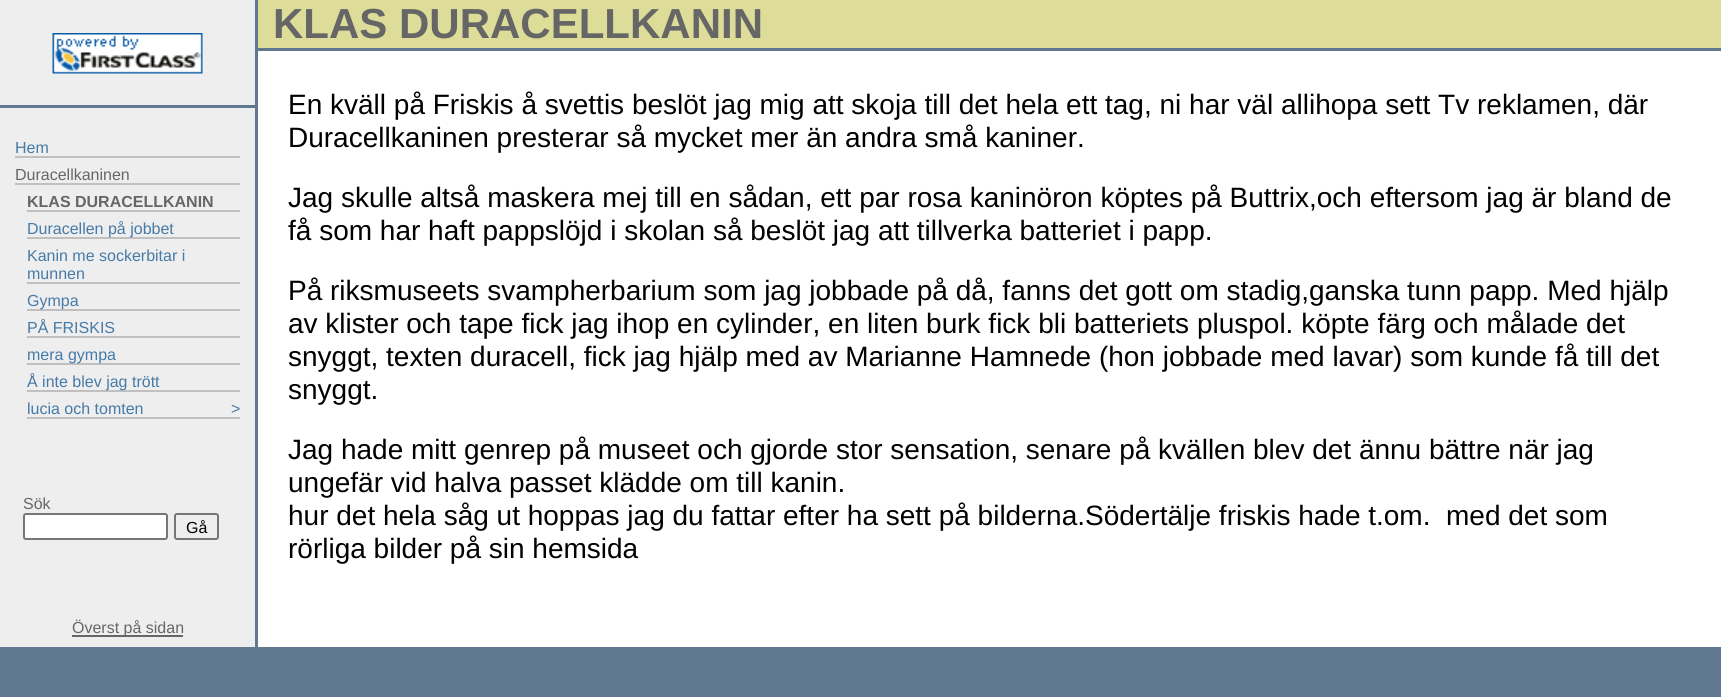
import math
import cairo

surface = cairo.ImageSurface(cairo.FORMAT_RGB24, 1721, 697)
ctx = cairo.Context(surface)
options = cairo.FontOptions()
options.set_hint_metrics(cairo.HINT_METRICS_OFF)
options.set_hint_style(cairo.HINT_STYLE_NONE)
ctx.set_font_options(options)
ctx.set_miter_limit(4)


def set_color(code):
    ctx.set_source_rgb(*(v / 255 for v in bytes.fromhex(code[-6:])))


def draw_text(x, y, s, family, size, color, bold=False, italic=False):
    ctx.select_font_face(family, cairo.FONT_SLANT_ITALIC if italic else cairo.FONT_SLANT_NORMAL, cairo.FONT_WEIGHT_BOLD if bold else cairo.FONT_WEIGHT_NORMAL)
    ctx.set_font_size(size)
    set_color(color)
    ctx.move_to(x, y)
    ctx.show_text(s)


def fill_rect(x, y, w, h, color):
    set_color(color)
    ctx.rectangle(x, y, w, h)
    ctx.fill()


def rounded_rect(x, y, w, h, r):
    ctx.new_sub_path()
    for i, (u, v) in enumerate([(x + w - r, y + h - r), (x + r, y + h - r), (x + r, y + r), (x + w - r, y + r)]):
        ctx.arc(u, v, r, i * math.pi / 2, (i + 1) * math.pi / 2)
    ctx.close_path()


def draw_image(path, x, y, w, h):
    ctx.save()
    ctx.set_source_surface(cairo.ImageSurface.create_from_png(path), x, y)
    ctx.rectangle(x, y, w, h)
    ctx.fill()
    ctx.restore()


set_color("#607991")
ctx.paint()
fill_rect(0, 0, 255, 647, "#eeeeee")
draw_image("assets/img1.png", 52, 33, 151, 41)
fill_rect(0, 105, 255, 3, "#607991")
draw_text(15, 153, "Hem", "Liberation Sans", 16, "#467aa7")
fill_rect(15, 156, 225, 2, "#c0c0c0")
draw_text(15, 180, "Duracellkaninen", "Liberation Sans", 16, "#666666")
fill_rect(15, 183, 225, 2, "#c0c0c0")
draw_text(27, 207, "KLAS DURACELLKANIN", "Liberation Sans", 16, "#666666", bold=True)
fill_rect(27, 210, 213, 2, "#c0c0c0")
fill_rect(27, 237, 213, 2, "#c0c0c0")
draw_text(27, 234, "Duracellen på jobbet", "Liberation Sans", 16, "#467aa7")
draw_text(27, 261, "Kanin me sockerbitar i", "Liberation Sans", 16, "#467aa7")
draw_text(27, 279, "munnen", "Liberation Sans", 16, "#467aa7")
fill_rect(27, 282, 213, 2, "#c0c0c0")
fill_rect(27, 309, 213, 2, "#c0c0c0")
draw_text(27, 306, "Gympa", "Liberation Sans", 16, "#467aa7")
draw_text(27, 333, "PÅ FRISKIS", "Liberation Sans", 16, "#467aa7")
fill_rect(27, 336, 213, 2, "#c0c0c0")
fill_rect(27, 363, 213, 2, "#c0c0c0")
draw_text(27, 360, "mera gympa", "Liberation Sans", 16, "#467aa7")
fill_rect(27, 390, 213, 2, "#c0c0c0")
draw_text(27, 387, "Å inte blev jag trött", "Liberation Sans", 16, "#467aa7")
draw_text(27, 414, "lucia och tomten", "Liberation Sans", 16, "#467aa7")
draw_text(231, 414, ">", "Liberation Sans", 16, "#467aa7")
fill_rect(27, 417, 213, 2, "#c0c0c0")
draw_text(23, 509, "Sök", "Liberation Sans", 16, "#666666")
set_color("#ffffff")
rounded_rect(24, 514, 143, 25, 2)
ctx.fill_preserve()
set_color("#767676")
ctx.stroke()
rounded_rect(175, 514, 43, 25, 2)
ctx.stroke()
draw_text(186, 533, "Gå", "Liberation Sans", 16, "#000000")
fill_rect(258, 51, 1463, 596, "#ffffff")
fill_rect(258, 0, 1463, 48, "#dddd99")
draw_text(273, 38, "KLAS DURACELLKANIN", "Liberation Sans", 42, "#666666", bold=True)
draw_text(288, 114, "En kväll på Friskis å svettis beslöt jag mig att skoja till det hela ett tag, ni har väl allihopa sett Tv reklamen, där", "Liberation Sans", 28, "#000000")
draw_text(288, 147, "Duracellkaninen presterar så mycket mer än andra små kaniner.", "Liberation Sans", 28, "#000000")
draw_text(288, 207, "Jag skulle altså maskera mej till en sådan, ett par rosa kaninöron köptes på Buttrix,och eftersom jag är bland de", "Liberation Sans", 28, "#000000")
draw_text(288, 240, "få som har haft pappslöjd i skolan så beslöt jag att tillverka batteriet i papp.", "Liberation Sans", 28, "#000000")
draw_text(288, 300, "På riksmuseets svampherbarium som jag jobbade på då, fanns det gott om stadig,ganska tunn papp. Med hjälp", "Liberation Sans", 28, "#000000")
draw_text(288, 333, "av klister och tape fick jag ihop en cylinder, en liten burk fick bli batteriets pluspol. köpte färg och målade det", "Liberation Sans", 28, "#000000")
draw_text(288, 366, "snyggt, texten duracell, fick jag hjälp med av Marianne Hamnede (hon jobbade med lavar) som kunde få till det", "Liberation Sans", 28, "#000000")
draw_text(288, 399, "snyggt.", "Liberation Sans", 28, "#000000")
draw_text(288, 459, "Jag hade mitt genrep på museet och gjorde stor sensation, senare på kvällen blev det ännu bättre när jag", "Liberation Sans", 28, "#000000")
draw_text(288, 492, "ungefär vid halva passet klädde om till kanin.", "Liberation Sans", 28, "#000000")
draw_text(288, 525, "hur det hela såg ut hoppas jag du fattar efter ha sett på bilderna.Södertälje friskis hade t.om.  med det som", "Liberation Sans", 28, "#000000")
draw_text(288, 558, "rörliga bilder på sin hemsida", "Liberation Sans", 28, "#000000")
fill_rect(72, 635, 111, 2, "#666666")
draw_text(72, 633, "Överst på sidan", "Liberation Sans", 16, "#666666")
surface.write_to_png("output.png")
